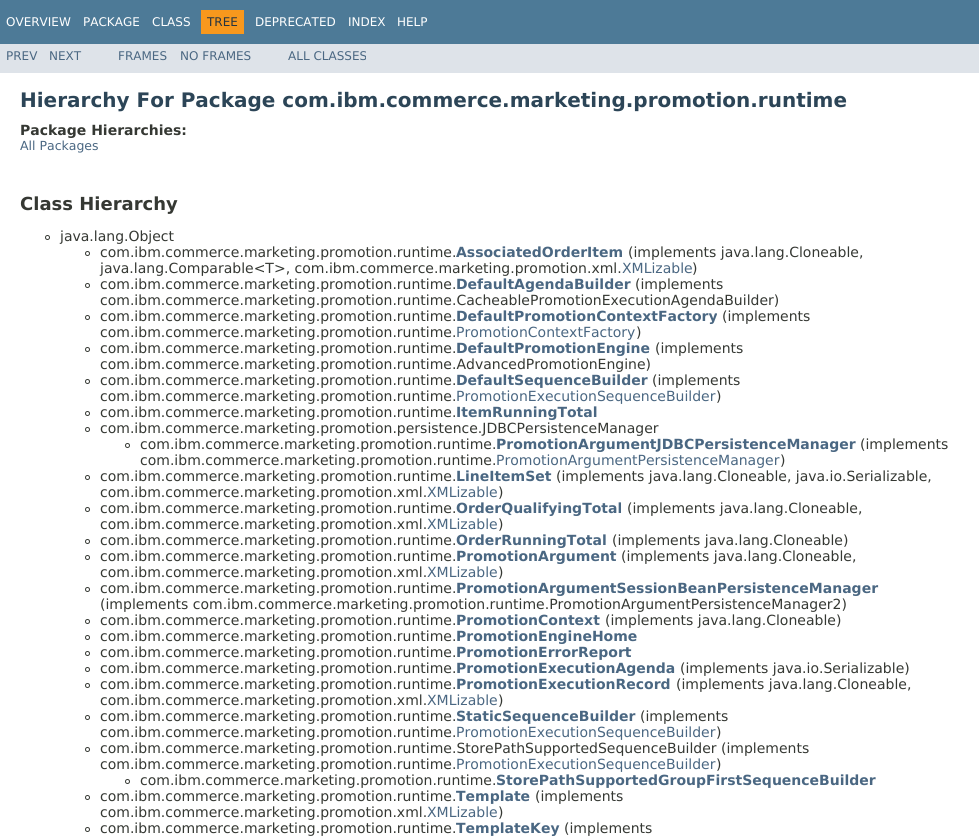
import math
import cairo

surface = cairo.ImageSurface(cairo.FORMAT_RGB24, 979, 839)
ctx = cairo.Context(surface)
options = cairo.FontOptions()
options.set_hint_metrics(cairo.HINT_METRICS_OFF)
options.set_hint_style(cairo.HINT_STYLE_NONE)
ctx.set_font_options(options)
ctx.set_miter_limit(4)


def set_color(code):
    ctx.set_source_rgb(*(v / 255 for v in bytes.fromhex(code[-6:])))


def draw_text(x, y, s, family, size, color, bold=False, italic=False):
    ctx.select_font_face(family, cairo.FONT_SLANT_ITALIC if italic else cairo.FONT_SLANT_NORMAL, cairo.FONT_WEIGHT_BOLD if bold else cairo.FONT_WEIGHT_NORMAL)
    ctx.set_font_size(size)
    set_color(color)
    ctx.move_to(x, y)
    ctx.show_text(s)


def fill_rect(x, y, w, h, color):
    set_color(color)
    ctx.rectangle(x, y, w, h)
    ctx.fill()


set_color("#ffffff")
ctx.paint()
fill_rect(0, 0, 979, 44, "#4d7a97")
draw_text(6, 26, "OVERVIEW", "DejaVu Sans", 12, "#ffffff")
draw_text(83, 26, "PACKAGE", "DejaVu Sans", 12, "#ffffff")
draw_text(152, 26, "CLASS", "DejaVu Sans", 12, "#ffffff")
fill_rect(201, 10, 43, 24, "#f8981d")
draw_text(207, 26, "TREE", "DejaVu Sans", 12, "#253441")
draw_text(255, 26, "DEPRECATED", "DejaVu Sans", 12, "#ffffff")
draw_text(348, 26, "INDEX", "DejaVu Sans", 12, "#ffffff")
draw_text(397, 26, "HELP", "DejaVu Sans", 12, "#ffffff")
fill_rect(0, 44, 979, 29, "#dee3e9")
draw_text(6, 60, "PREV", "DejaVu Sans", 12, "#4a6782")
draw_text(49, 60, "NEXT", "DejaVu Sans", 12, "#4a6782")
draw_text(118, 60, "FRAMES", "DejaVu Sans", 12, "#4a6782")
draw_text(180, 60, "NO FRAMES", "DejaVu Sans", 12, "#4a6782")
draw_text(288, 60, "ALL CLASSES", "DejaVu Sans", 12, "#4a6782")
draw_text(20, 107, "Hierarchy For Package com.ibm.commerce.marketing.promotion.runtime", "DejaVu Sans", 20, "#2c4557", bold=True)
draw_text(20, 135, "Package Hierarchies:", "DejaVu Sans", 14, "#353833", bold=True)
draw_text(20, 150, "All Packages", "DejaVu Sans", 12.5, "#4a6782")
draw_text(20, 210, "Class Hierarchy", "DejaVu Sans", 18, "#353833", bold=True)
ctx.new_path()
ctx.arc(47.5, 237.5, 2, 0, 2 * math.pi)
ctx.set_line_width(1)
ctx.stroke()
draw_text(60, 241, "java.lang.Object", "DejaVu Sans", 14, "#353833")
ctx.new_path()
ctx.arc(87.5, 253.5, 2, 0, 2 * math.pi)
ctx.stroke()
draw_text(100, 257, "com.ibm.commerce.marketing.promotion.runtime.", "DejaVu Sans", 14, "#353833")
draw_text(456, 257, "AssociatedOrderItem", "DejaVu Sans", 14, "#4a6782", bold=True)
draw_text(628, 257, "(implements java.lang.Cloneable,", "DejaVu Sans", 14, "#353833")
draw_text(100, 273, "java.lang.Comparable<T>, com.ibm.commerce.marketing.promotion.xml.", "DejaVu Sans", 14, "#353833")
draw_text(622, 273, "XMLizable", "DejaVu Sans", 14, "#4a6782")
draw_text(692, 273, ")", "DejaVu Sans", 14, "#353833")
ctx.new_path()
ctx.arc(87.5, 285.5, 2, 0, 2 * math.pi)
ctx.stroke()
draw_text(100, 289, "com.ibm.commerce.marketing.promotion.runtime.", "DejaVu Sans", 14, "#353833")
draw_text(456, 289, "DefaultAgendaBuilder", "DejaVu Sans", 14, "#4a6782", bold=True)
draw_text(635, 289, "(implements", "DejaVu Sans", 14, "#353833")
draw_text(100, 305, "com.ibm.commerce.marketing.promotion.runtime.CacheablePromotionExecutionAgendaBuilder)", "DejaVu Sans", 14, "#353833")
ctx.new_path()
ctx.arc(87.5, 317.5, 2, 0, 2 * math.pi)
ctx.stroke()
draw_text(100, 321, "com.ibm.commerce.marketing.promotion.runtime.", "DejaVu Sans", 14, "#353833")
draw_text(456, 321, "DefaultPromotionContextFactory", "DejaVu Sans", 14, "#4a6782", bold=True)
draw_text(722, 321, "(implements", "DejaVu Sans", 14, "#353833")
draw_text(100, 337, "com.ibm.commerce.marketing.promotion.runtime.", "DejaVu Sans", 14, "#353833")
draw_text(456, 337, "PromotionContextFactory", "DejaVu Sans", 14, "#4a6782")
draw_text(636, 337, ")", "DejaVu Sans", 14, "#353833")
ctx.new_path()
ctx.arc(87.5, 349.5, 2, 0, 2 * math.pi)
ctx.stroke()
draw_text(100, 353, "com.ibm.commerce.marketing.promotion.runtime.", "DejaVu Sans", 14, "#353833")
draw_text(456, 353, "DefaultPromotionEngine", "DejaVu Sans", 14, "#4a6782", bold=True)
draw_text(655, 353, "(implements", "DejaVu Sans", 14, "#353833")
draw_text(100, 369, "com.ibm.commerce.marketing.promotion.runtime.AdvancedPromotionEngine)", "DejaVu Sans", 14, "#353833")
ctx.new_path()
ctx.arc(87.5, 381.5, 2, 0, 2 * math.pi)
ctx.stroke()
draw_text(100, 385, "com.ibm.commerce.marketing.promotion.runtime.", "DejaVu Sans", 14, "#353833")
draw_text(456, 385, "DefaultSequenceBuilder", "DejaVu Sans", 14, "#4a6782", bold=True)
draw_text(652, 385, "(implements", "DejaVu Sans", 14, "#353833")
draw_text(100, 401, "com.ibm.commerce.marketing.promotion.runtime.", "DejaVu Sans", 14, "#353833")
draw_text(456, 401, "PromotionExecutionSequenceBuilder", "DejaVu Sans", 14, "#4a6782")
draw_text(716, 401, ")", "DejaVu Sans", 14, "#353833")
ctx.new_path()
ctx.arc(87.5, 413.5, 2, 0, 2 * math.pi)
ctx.stroke()
draw_text(100, 417, "com.ibm.commerce.marketing.promotion.runtime.", "DejaVu Sans", 14, "#353833")
draw_text(456, 417, "ItemRunningTotal", "DejaVu Sans", 14, "#4a6782", bold=True)
ctx.new_path()
ctx.arc(87.5, 429.5, 2, 0, 2 * math.pi)
set_color("#353833")
ctx.stroke()
draw_text(100, 433, "com.ibm.commerce.marketing.promotion.persistence.JDBCPersistenceManager", "DejaVu Sans", 14, "#353833")
ctx.new_path()
ctx.arc(127.5, 445.5, 2, 0, 2 * math.pi)
ctx.stroke()
draw_text(140, 449, "com.ibm.commerce.marketing.promotion.runtime.", "DejaVu Sans", 14, "#353833")
draw_text(496, 449, "PromotionArgumentJDBCPersistenceManager", "DejaVu Sans", 14, "#4a6782", bold=True)
draw_text(860, 449, "(implements", "DejaVu Sans", 14, "#353833")
draw_text(140, 465, "com.ibm.commerce.marketing.promotion.runtime.", "DejaVu Sans", 14, "#353833")
draw_text(496, 465, "PromotionArgumentPersistenceManager", "DejaVu Sans", 14, "#4a6782")
draw_text(780, 465, ")", "DejaVu Sans", 14, "#353833")
ctx.new_path()
ctx.arc(87.5, 477.5, 2, 0, 2 * math.pi)
ctx.stroke()
draw_text(100, 481, "com.ibm.commerce.marketing.promotion.runtime.", "DejaVu Sans", 14, "#353833")
draw_text(456, 481, "LineItemSet", "DejaVu Sans", 14, "#4a6782", bold=True)
draw_text(556, 481, "(implements java.lang.Cloneable, java.io.Serializable,", "DejaVu Sans", 14, "#353833")
draw_text(100, 497, "com.ibm.commerce.marketing.promotion.xml.", "DejaVu Sans", 14, "#353833")
draw_text(427, 497, "XMLizable", "DejaVu Sans", 14, "#4a6782")
draw_text(498, 497, ")", "DejaVu Sans", 14, "#353833")
ctx.new_path()
ctx.arc(87.5, 509.5, 2, 0, 2 * math.pi)
ctx.stroke()
draw_text(100, 513, "com.ibm.commerce.marketing.promotion.runtime.", "DejaVu Sans", 14, "#353833")
draw_text(456, 513, "OrderQualifyingTotal", "DejaVu Sans", 14, "#4a6782", bold=True)
draw_text(627, 513, "(implements java.lang.Cloneable,", "DejaVu Sans", 14, "#353833")
draw_text(100, 529, "com.ibm.commerce.marketing.promotion.xml.", "DejaVu Sans", 14, "#353833")
draw_text(427, 529, "XMLizable", "DejaVu Sans", 14, "#4a6782")
draw_text(498, 529, ")", "DejaVu Sans", 14, "#353833")
ctx.new_path()
ctx.arc(87.5, 541.5, 2, 0, 2 * math.pi)
ctx.stroke()
draw_text(100, 545, "com.ibm.commerce.marketing.promotion.runtime.", "DejaVu Sans", 14, "#353833")
draw_text(456, 545, "OrderRunningTotal", "DejaVu Sans", 14, "#4a6782", bold=True)
draw_text(612, 545, "(implements java.lang.Cloneable)", "DejaVu Sans", 14, "#353833")
ctx.new_path()
ctx.arc(87.5, 557.5, 2, 0, 2 * math.pi)
ctx.stroke()
draw_text(100, 561, "com.ibm.commerce.marketing.promotion.runtime.", "DejaVu Sans", 14, "#353833")
draw_text(456, 561, "PromotionArgument", "DejaVu Sans", 14, "#4a6782", bold=True)
draw_text(621, 561, "(implements java.lang.Cloneable,", "DejaVu Sans", 14, "#353833")
draw_text(100, 577, "com.ibm.commerce.marketing.promotion.xml.", "DejaVu Sans", 14, "#353833")
draw_text(427, 577, "XMLizable", "DejaVu Sans", 14, "#4a6782")
draw_text(498, 577, ")", "DejaVu Sans", 14, "#353833")
ctx.new_path()
ctx.arc(87.5, 589.5, 2, 0, 2 * math.pi)
ctx.stroke()
draw_text(100, 593, "com.ibm.commerce.marketing.promotion.runtime.", "DejaVu Sans", 14, "#353833")
draw_text(456, 593, "PromotionArgumentSessionBeanPersistenceManager", "DejaVu Sans", 14, "#4a6782", bold=True)
draw_text(100, 609, "(implements com.ibm.commerce.marketing.promotion.runtime.PromotionArgumentPersistenceManager2)", "DejaVu Sans", 14, "#353833")
ctx.new_path()
ctx.arc(87.5, 621.5, 2, 0, 2 * math.pi)
ctx.stroke()
draw_text(100, 625, "com.ibm.commerce.marketing.promotion.runtime.", "DejaVu Sans", 14, "#353833")
draw_text(456, 625, "PromotionContext", "DejaVu Sans", 14, "#4a6782", bold=True)
draw_text(605, 625, "(implements java.lang.Cloneable)", "DejaVu Sans", 14, "#353833")
ctx.new_path()
ctx.arc(87.5, 637.5, 2, 0, 2 * math.pi)
ctx.stroke()
draw_text(100, 641, "com.ibm.commerce.marketing.promotion.runtime.", "DejaVu Sans", 14, "#353833")
draw_text(456, 641, "PromotionEngineHome", "DejaVu Sans", 14, "#4a6782", bold=True)
ctx.new_path()
ctx.arc(87.5, 653.5, 2, 0, 2 * math.pi)
set_color("#353833")
ctx.stroke()
draw_text(100, 657, "com.ibm.commerce.marketing.promotion.runtime.", "DejaVu Sans", 14, "#353833")
draw_text(456, 657, "PromotionErrorReport", "DejaVu Sans", 14, "#4a6782", bold=True)
ctx.new_path()
ctx.arc(87.5, 669.5, 2, 0, 2 * math.pi)
set_color("#353833")
ctx.stroke()
draw_text(100, 673, "com.ibm.commerce.marketing.promotion.runtime.", "DejaVu Sans", 14, "#353833")
draw_text(456, 673, "PromotionExecutionAgenda", "DejaVu Sans", 14, "#4a6782", bold=True)
draw_text(680, 673, "(implements java.io.Serializable)", "DejaVu Sans", 14, "#353833")
ctx.new_path()
ctx.arc(87.5, 685.5, 2, 0, 2 * math.pi)
ctx.stroke()
draw_text(100, 689, "com.ibm.commerce.marketing.promotion.runtime.", "DejaVu Sans", 14, "#353833")
draw_text(456, 689, "PromotionExecutionRecord", "DejaVu Sans", 14, "#4a6782", bold=True)
draw_text(676, 689, "(implements java.lang.Cloneable,", "DejaVu Sans", 14, "#353833")
draw_text(100, 705, "com.ibm.commerce.marketing.promotion.xml.", "DejaVu Sans", 14, "#353833")
draw_text(427, 705, "XMLizable", "DejaVu Sans", 14, "#4a6782")
draw_text(498, 705, ")", "DejaVu Sans", 14, "#353833")
ctx.new_path()
ctx.arc(87.5, 717.5, 2, 0, 2 * math.pi)
ctx.stroke()
draw_text(100, 721, "com.ibm.commerce.marketing.promotion.runtime.", "DejaVu Sans", 14, "#353833")
draw_text(456, 721, "StaticSequenceBuilder", "DejaVu Sans", 14, "#4a6782", bold=True)
draw_text(640, 721, "(implements", "DejaVu Sans", 14, "#353833")
draw_text(100, 737, "com.ibm.commerce.marketing.promotion.runtime.", "DejaVu Sans", 14, "#353833")
draw_text(456, 737, "PromotionExecutionSequenceBuilder", "DejaVu Sans", 14, "#4a6782")
draw_text(716, 737, ")", "DejaVu Sans", 14, "#353833")
ctx.new_path()
ctx.arc(87.5, 749.5, 2, 0, 2 * math.pi)
ctx.stroke()
draw_text(100, 753, "com.ibm.commerce.marketing.promotion.runtime.StorePathSupportedSequenceBuilder (implements", "DejaVu Sans", 14, "#353833")
draw_text(100, 769, "com.ibm.commerce.marketing.promotion.runtime.", "DejaVu Sans", 14, "#353833")
draw_text(456, 769, "PromotionExecutionSequenceBuilder", "DejaVu Sans", 14, "#4a6782")
draw_text(716, 769, ")", "DejaVu Sans", 14, "#353833")
ctx.new_path()
ctx.arc(127.5, 781.5, 2, 0, 2 * math.pi)
ctx.stroke()
draw_text(140, 785, "com.ibm.commerce.marketing.promotion.runtime.", "DejaVu Sans", 14, "#353833")
draw_text(496, 785, "StorePathSupportedGroupFirstSequenceBuilder", "DejaVu Sans", 14, "#4a6782", bold=True)
ctx.new_path()
ctx.arc(87.5, 797.5, 2, 0, 2 * math.pi)
set_color("#353833")
ctx.stroke()
draw_text(100, 801, "com.ibm.commerce.marketing.promotion.runtime.", "DejaVu Sans", 14, "#353833")
draw_text(456, 801, "Template", "DejaVu Sans", 14, "#4a6782", bold=True)
draw_text(535, 801, "(implements", "DejaVu Sans", 14, "#353833")
draw_text(100, 817, "com.ibm.commerce.marketing.promotion.xml.", "DejaVu Sans", 14, "#353833")
draw_text(427, 817, "XMLizable", "DejaVu Sans", 14, "#4a6782")
draw_text(498, 817, ")", "DejaVu Sans", 14, "#353833")
ctx.new_path()
ctx.arc(87.5, 829.5, 2, 0, 2 * math.pi)
ctx.stroke()
draw_text(100, 833, "com.ibm.commerce.marketing.promotion.runtime.", "DejaVu Sans", 14, "#353833")
draw_text(456, 833, "TemplateKey", "DejaVu Sans", 14, "#4a6782", bold=True)
draw_text(564, 833, "(implements", "DejaVu Sans", 14, "#353833")
surface.write_to_png("output.png")
